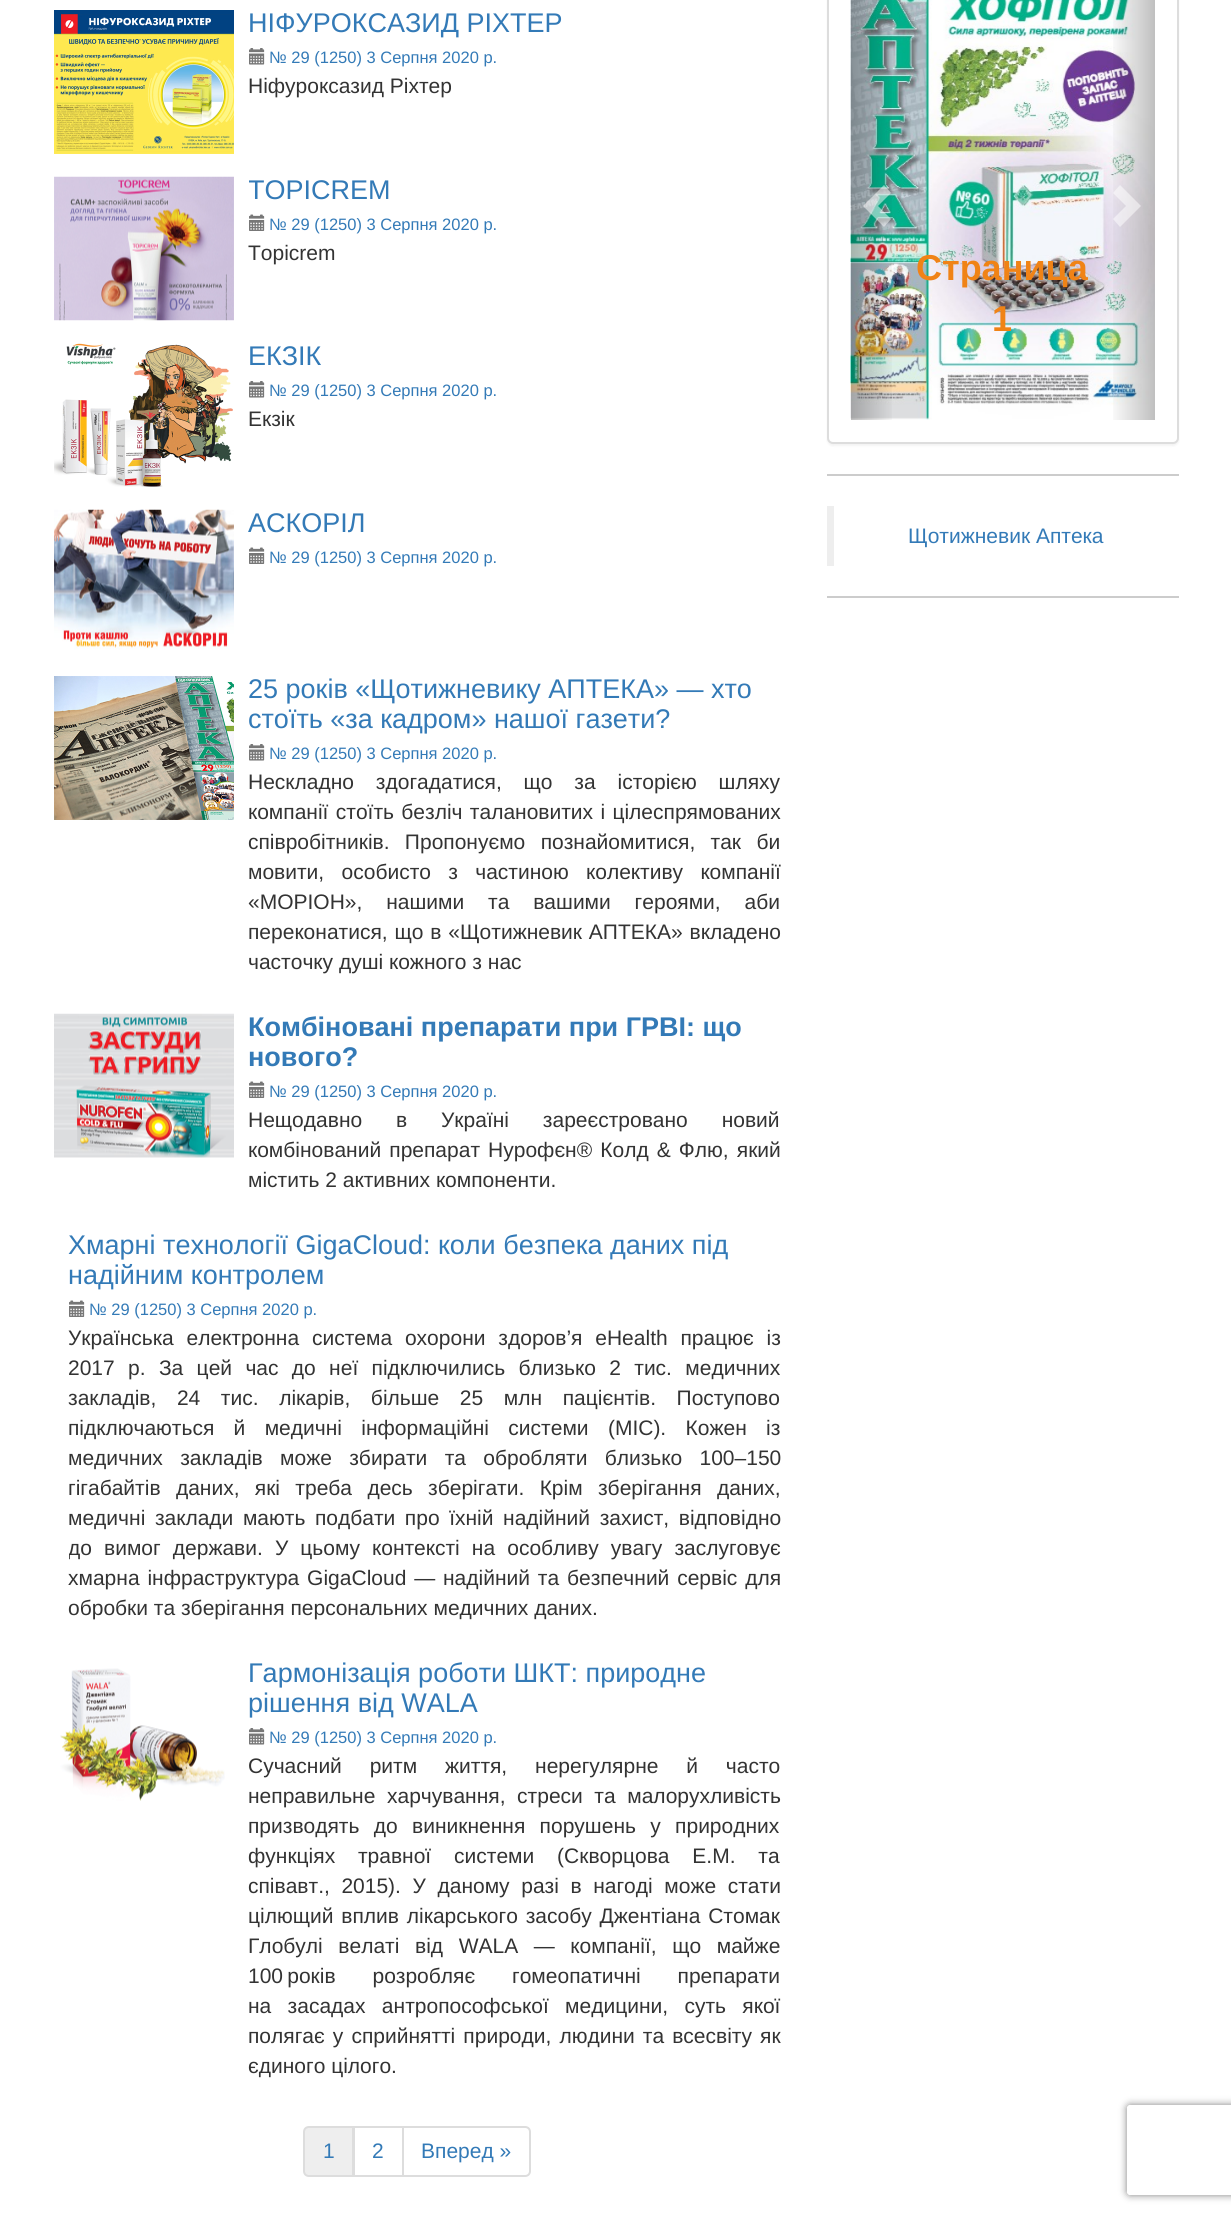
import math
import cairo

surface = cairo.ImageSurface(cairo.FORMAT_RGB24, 1231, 2215)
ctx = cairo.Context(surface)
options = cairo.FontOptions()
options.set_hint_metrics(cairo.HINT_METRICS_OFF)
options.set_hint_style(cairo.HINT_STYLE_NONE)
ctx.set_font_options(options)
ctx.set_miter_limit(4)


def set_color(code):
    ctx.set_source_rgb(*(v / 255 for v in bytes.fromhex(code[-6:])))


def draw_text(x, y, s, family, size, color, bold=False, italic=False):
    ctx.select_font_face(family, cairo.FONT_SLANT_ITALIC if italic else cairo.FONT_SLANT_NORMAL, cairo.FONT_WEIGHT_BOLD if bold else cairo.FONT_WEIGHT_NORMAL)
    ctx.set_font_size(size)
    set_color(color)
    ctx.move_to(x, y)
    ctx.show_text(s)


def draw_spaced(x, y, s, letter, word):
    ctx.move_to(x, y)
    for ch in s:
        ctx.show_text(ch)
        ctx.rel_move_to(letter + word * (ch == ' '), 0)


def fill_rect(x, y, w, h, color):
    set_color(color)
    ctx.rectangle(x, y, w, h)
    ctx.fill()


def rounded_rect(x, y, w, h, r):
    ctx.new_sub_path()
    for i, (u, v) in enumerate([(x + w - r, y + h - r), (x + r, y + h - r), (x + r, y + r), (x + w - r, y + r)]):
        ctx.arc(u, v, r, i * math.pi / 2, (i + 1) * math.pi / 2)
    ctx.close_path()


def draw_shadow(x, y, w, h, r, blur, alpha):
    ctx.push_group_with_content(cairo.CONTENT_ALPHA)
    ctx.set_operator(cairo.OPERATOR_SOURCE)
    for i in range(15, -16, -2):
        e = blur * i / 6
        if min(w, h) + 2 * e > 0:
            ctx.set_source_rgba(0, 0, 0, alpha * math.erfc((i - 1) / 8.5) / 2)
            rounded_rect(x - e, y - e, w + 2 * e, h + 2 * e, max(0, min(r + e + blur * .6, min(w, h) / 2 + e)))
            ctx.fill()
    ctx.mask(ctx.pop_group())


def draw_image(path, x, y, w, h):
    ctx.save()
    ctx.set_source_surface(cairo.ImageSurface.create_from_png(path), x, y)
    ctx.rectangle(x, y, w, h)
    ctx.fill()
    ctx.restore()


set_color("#ffffff")
ctx.paint()
draw_image("assets/img1.png", 54, 10, 180, 144)
draw_text(248, 32, "НІФУРОКСАЗИД РІХТЕР", "Liberation Sans", 27, "#337ab7")
draw_image("assets/img2.png", 249, 48, 16, 17)
draw_text(269, 63, "№ 29 (1250) 3 Серпня 2020 р.", "Liberation Sans", 16.5, "#337ab7")
draw_text(248, 93, "Ніфуроксазид Ріхтер", "Liberation Sans", 21, "#333333")
draw_image("assets/img3.png", 54, 176, 180, 145)
ctx.save()
ctx.rectangle(249, 177, 533, 144)
ctx.clip()
draw_text(248, 199, "TOPICREM", "Liberation Sans", 27, "#337ab7")
ctx.restore()
draw_image("assets/img4.png", 249, 214, 16, 17)
draw_text(269, 230, "№ 29 (1250) 3 Серпня 2020 р.", "Liberation Sans", 16.5, "#337ab7")
draw_text(248, 260, "Topicrem", "Liberation Sans", 21, "#333333")
draw_image("assets/img5.png", 54, 343, 179, 144)
draw_text(248, 365, "ЕКЗІК", "Liberation Sans", 27, "#337ab7")
draw_image("assets/img2.png", 249, 381, 16, 17)
draw_text(269, 396, "№ 29 (1250) 3 Серпня 2020 р.", "Liberation Sans", 16.5, "#337ab7")
draw_text(248, 426, "Екзік", "Liberation Sans", 21, "#333333")
draw_image("assets/img6.png", 54, 509, 180, 141)
draw_text(248, 532, "АСКОРІЛ", "Liberation Sans", 27, "#337ab7")
draw_image("assets/img4.png", 249, 547, 16, 17)
draw_text(269, 563, "№ 29 (1250) 3 Серпня 2020 р.", "Liberation Sans", 16.5, "#337ab7")
draw_image("assets/img7.png", 54, 676, 180, 144)
draw_text(248, 698, "25 років «Щотижневику АПТЕКА» — хто", "Liberation Sans", 27, "#337ab7")
draw_text(248, 728, "стоїть «за кадром» нашої газети?", "Liberation Sans", 27, "#337ab7")
draw_image("assets/img2.png", 249, 744, 16, 17)
draw_text(269, 759, "№ 29 (1250) 3 Серпня 2020 р.", "Liberation Sans", 16.5, "#337ab7")
ctx.set_font_size(21)
set_color("#333333")
draw_spaced(248, 789, "Нескладно здогадатися, що за історією шляху", 0, 16)
draw_spaced(248, 819, "компанії стоїть безліч талановитих і цілеспрямованих", 0, 1.5)
draw_spaced(248, 849, "співробітників. Пропонуємо познайомитися, так би", 0, 9.5)
draw_spaced(248, 879, "мовити, особисто з частиною колективу компанії", 0, 11.5)
draw_spaced(248, 909, "«МОРІОН», нашими та вашими героями, аби", 0, 18)
draw_spaced(248, 939, "переконатися, що в «Щотижневик АПТЕКА» вкладено", 0, 1)
draw_text(248, 969, "часточку душі кожного з нас", "Liberation Sans", 21, "#333333")
draw_image("assets/img8.png", 54, 1013, 180, 145)
draw_text(248, 1036, "Комбіновані препарати при ГРВІ: що", "Liberation Sans", 27, "#337ab7", bold=True)
draw_text(248, 1066, "нового?", "Liberation Sans", 27, "#337ab7", bold=True)
draw_image("assets/img4.png", 249, 1081, 16, 17)
draw_text(269, 1097, "№ 29 (1250) 3 Серпня 2020 р.", "Liberation Sans", 16.5, "#337ab7")
ctx.set_font_size(21)
set_color("#333333")
draw_spaced(248, 1127, "Нещодавно в Україні зареєстровано новий", 0, 28)
draw_spaced(248, 1157, "комбінований препарат Нурофєн® Колд & Флю, який", 0, 2.25)
draw_text(248, 1187, "містить 2 активних компоненти.", "Liberation Sans", 21, "#333333")
draw_text(68, 1254, "Хмарні технології GigaCloud: коли безпека даних під", "Liberation Sans", 27, "#337ab7")
draw_text(68, 1284, "надійним контролем", "Liberation Sans", 27, "#337ab7")
draw_image("assets/img4.png", 69, 1300, 16, 17)
draw_text(89, 1315, "№ 29 (1250) 3 Серпня 2020 р.", "Liberation Sans", 16.5, "#337ab7")
ctx.set_font_size(21)
set_color("#333333")
draw_spaced(68, 1345, "Українська електронна система охорони здоров’я eHealth працює із", 0, 7)
draw_spaced(68, 1375, "2017 р. За цей час до неї підключились близько 2 тис. медичних", 0, 7.5)
draw_spaced(68, 1405, "закладів, 24 тис. лікарів, більше 25 млн пацієнтів. Поступово", 0, 14.75)
draw_spaced(68, 1435, "підключаються й медичні інформаційні системи (МІС). Кожен із", 0, 13.5)
draw_spaced(68, 1465, "медичних закладів може збирати та обробляти близько 100–150", 0, 11.5)
draw_spaced(68, 1495, "гігабайтів даних, які треба десь зберігати. Крім зберігання даних,", 0, 9.5)
draw_spaced(68, 1525, "медичні заклади мають подбати про їхній надійний захист, відповідно", 0, 3.75)
ctx.save()
ctx.rectangle(69, 1232, 713, 405)
ctx.clip()
draw_spaced(68, 1555, "до вимог держави. У цьому контексті на особливу увагу заслуговує", 0, 6.25)
ctx.restore()
draw_spaced(68, 1585, "хмарна інфраструктура GigaCloud — надійний та безпечний сервіс для", 0, 2)
draw_text(68, 1615, "обробки та зберігання персональних медичних даних.", "Liberation Sans", 21, "#333333")
draw_image("assets/img9.png", 60, 1668, 165, 133)
draw_text(248, 1682, "Гармонізація роботи ШКТ: природне", "Liberation Sans", 27, "#337ab7")
draw_text(248, 1712, "рішення від WALA", "Liberation Sans", 27, "#337ab7")
draw_image("assets/img2.png", 249, 1728, 16, 17)
draw_text(269, 1743, "№ 29 (1250) 3 Серпня 2020 р.", "Liberation Sans", 16.5, "#337ab7")
ctx.set_font_size(21)
set_color("#333333")
draw_spaced(248, 1773, "Сучасний ритм життя, нерегулярне й часто", 0, 22)
draw_spaced(248, 1803, "неправильне харчування, стреси та малорухливість", 0, 5.75)
draw_spaced(248, 1833, "призводять до виникнення порушень у природних", 0, 8.5)
draw_spaced(248, 1863, "функціях травної системи (Скворцова Е.М. та", 0, 17)
draw_spaced(248, 1893, "співавт., 2015). У даному разі в нагоді може стати", 0, 5.75)
draw_spaced(248, 1923, "цілющий вплив лікарського засобу Джентіана Стомак", 0, 2)
draw_spaced(248, 1953, "Глобулі велаті від WALA — компанії, що майже", 0, 9.75)
draw_spaced(248, 1983, "100 років розробляє гомеопатичні препарати", 0, 31)
draw_spaced(248, 2013, "на засадах антропософської медицини, суть якої", 0, 10.5)
draw_spaced(248, 2043, "полягає у сприйнятті природи, людини та всесвіту як", 0, 2.25)
draw_text(248, 2073, "єдиного цілого.", "Liberation Sans", 21, "#333333")
set_color("#eeeeee")
ctx.new_path()
ctx.move_to(309, 2127)
ctx.line_to(353, 2127)
ctx.line_to(353, 2176)
ctx.line_to(309, 2176)
ctx.curve_to(306, 2176, 304, 2174, 304, 2171)
ctx.line_to(304, 2132)
ctx.curve_to(304, 2129, 306, 2127, 309, 2127)
ctx.close_path()
ctx.fill_preserve()
set_color("#dddddd")
ctx.stroke()
draw_text(323, 2158, "1", "Liberation Sans", 21, "#337ab7")
ctx.rectangle(354, 2127, 49, 49)
set_color("#dddddd")
ctx.stroke()
draw_text(372, 2158, "2", "Liberation Sans", 21, "#337ab7")
set_color("#ffffff")
ctx.new_path()
ctx.move_to(403, 2127)
ctx.line_to(525, 2127)
ctx.curve_to(528, 2127, 530, 2129, 530, 2132)
ctx.line_to(530, 2171)
ctx.curve_to(530, 2174, 528, 2176, 525, 2176)
ctx.line_to(403, 2176)
ctx.close_path()
ctx.fill_preserve()
set_color("#dddddd")
ctx.stroke()
draw_text(421, 2158, "Вперед »", "Liberation Sans", 21, "#337ab7")
set_color("#000000")
draw_shadow(827, -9, 352, 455, 6, 1, 0.05)
set_color("#ffffff")
rounded_rect(828, -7, 350, 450, 5)
ctx.fill_preserve()
set_color("#dddddd")
ctx.stroke()
draw_image("assets/img10.png", 850, 0, 305, 420)
gradient = cairo.LinearGradient(851, 196, 896, 196)
gradient.add_color_stop_rgba(0, 0, 0, 0, 0.25)
gradient.add_color_stop_rgba(1, 0, 0, 0, 0)
ctx.set_source(gradient)
ctx.rectangle(851, 0, 41, 420)
ctx.fill()
ctx.set_source_rgba(1, 1, 1, 0.5)
ctx.new_path()
ctx.move_to(891, 193)
ctx.line_to(878, 206)
ctx.line_to(891, 219)
ctx.line_to(884, 227)
ctx.line_to(863, 206)
ctx.line_to(884, 185)
ctx.close_path()
ctx.fill()
draw_text(916, 280, "Страница", "Liberation Sans", 36, "#f08316", bold=True)
draw_text(992, 331, "1", "Liberation Sans", 36, "#f08316", bold=True)
gradient = cairo.LinearGradient(1109, 196, 1155, 196)
gradient.add_color_stop_rgba(0, 0, 0, 0, 0)
gradient.add_color_stop_rgba(1, 0, 0, 0, 0.25)
ctx.set_source(gradient)
ctx.rectangle(1113, 0, 42, 420)
ctx.fill()
ctx.set_source_rgba(1, 1, 1, 0.5)
ctx.new_path()
ctx.move_to(1141, 206)
ctx.line_to(1120, 227)
ctx.line_to(1113, 219)
ctx.line_to(1126, 206)
ctx.line_to(1113, 193)
ctx.line_to(1120, 185)
ctx.close_path()
ctx.fill()
fill_rect(827, 474, 352, 2, "#cccccc")
fill_rect(827, 506, 7, 60, "#eeeeee")
draw_text(908, 543, "Щотижневик Аптека", "Liberation Sans", 21, "#337ab7")
fill_rect(827, 596, 352, 2, "#cccccc")
ctx.save()
ctx.set_fill_rule(cairo.FILL_RULE_EVEN_ODD)
ctx.new_path()
ctx.move_to(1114, 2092)
ctx.line_to(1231, 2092)
ctx.line_to(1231, 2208)
ctx.line_to(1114, 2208)
ctx.close_path()
ctx.move_to(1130, 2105)
ctx.line_to(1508, 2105)
ctx.curve_to(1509.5, 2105, 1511, 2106.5, 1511, 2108)
ctx.line_to(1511, 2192)
ctx.curve_to(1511, 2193.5, 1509.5, 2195, 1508, 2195)
ctx.line_to(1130, 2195)
ctx.curve_to(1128.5, 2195, 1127, 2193.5, 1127, 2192)
ctx.line_to(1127, 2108)
ctx.curve_to(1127, 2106.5, 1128.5, 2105, 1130, 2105)
ctx.close_path()
ctx.clip()
set_color("#808080")
draw_shadow(1127, 2105, 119, 90, 3, 4, 1)
ctx.restore()
surface.write_to_png("output.png")
